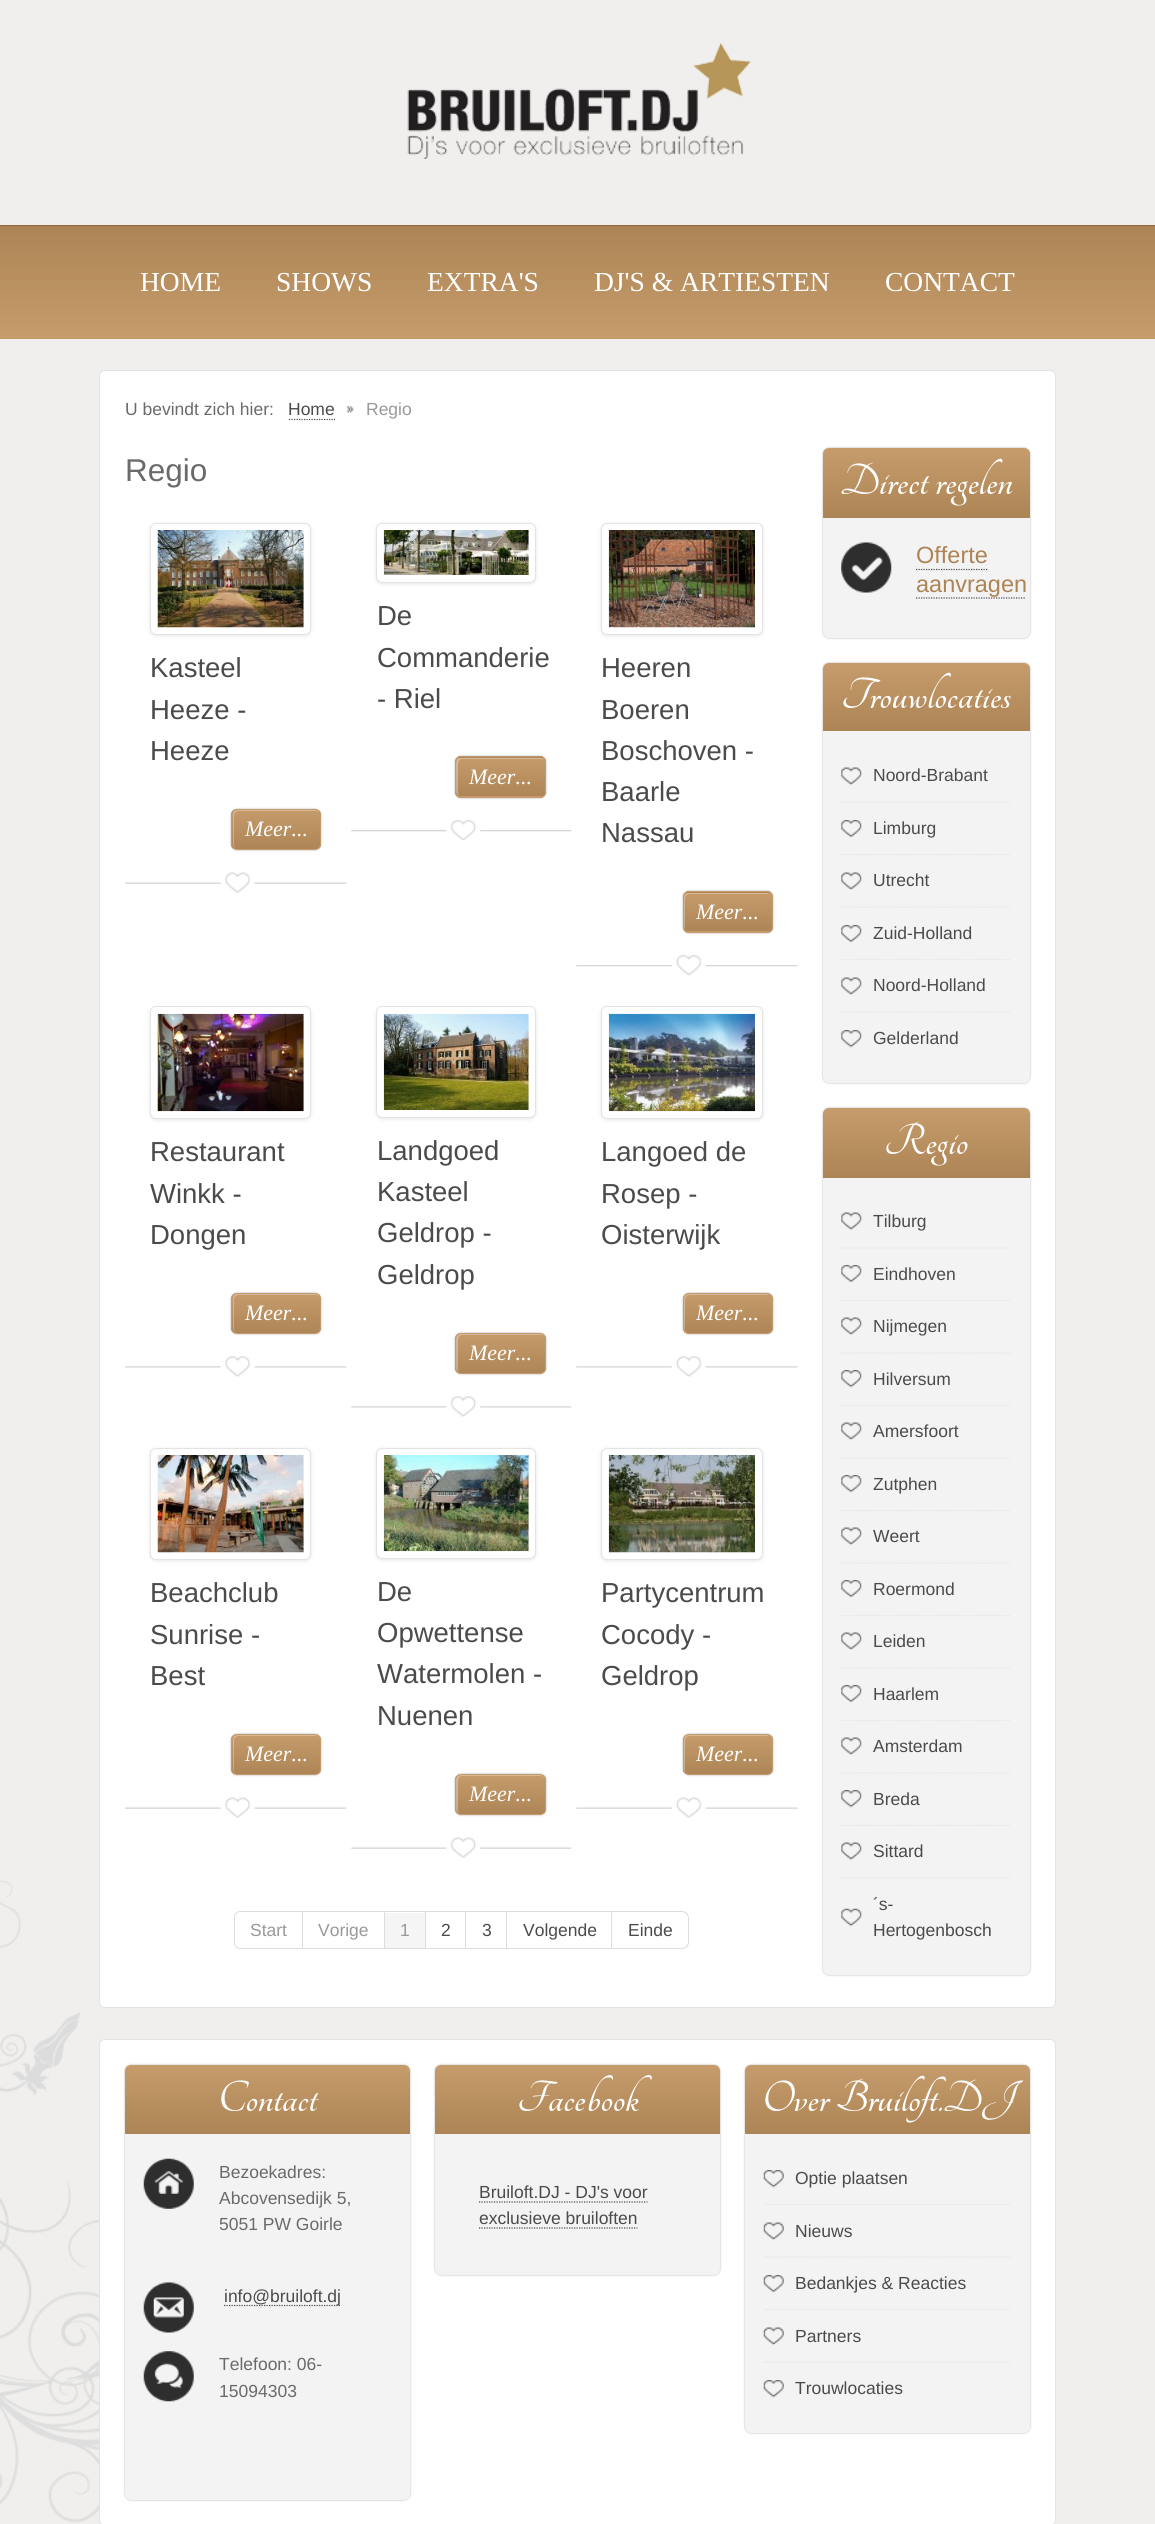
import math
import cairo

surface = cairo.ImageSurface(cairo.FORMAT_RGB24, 1155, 2524)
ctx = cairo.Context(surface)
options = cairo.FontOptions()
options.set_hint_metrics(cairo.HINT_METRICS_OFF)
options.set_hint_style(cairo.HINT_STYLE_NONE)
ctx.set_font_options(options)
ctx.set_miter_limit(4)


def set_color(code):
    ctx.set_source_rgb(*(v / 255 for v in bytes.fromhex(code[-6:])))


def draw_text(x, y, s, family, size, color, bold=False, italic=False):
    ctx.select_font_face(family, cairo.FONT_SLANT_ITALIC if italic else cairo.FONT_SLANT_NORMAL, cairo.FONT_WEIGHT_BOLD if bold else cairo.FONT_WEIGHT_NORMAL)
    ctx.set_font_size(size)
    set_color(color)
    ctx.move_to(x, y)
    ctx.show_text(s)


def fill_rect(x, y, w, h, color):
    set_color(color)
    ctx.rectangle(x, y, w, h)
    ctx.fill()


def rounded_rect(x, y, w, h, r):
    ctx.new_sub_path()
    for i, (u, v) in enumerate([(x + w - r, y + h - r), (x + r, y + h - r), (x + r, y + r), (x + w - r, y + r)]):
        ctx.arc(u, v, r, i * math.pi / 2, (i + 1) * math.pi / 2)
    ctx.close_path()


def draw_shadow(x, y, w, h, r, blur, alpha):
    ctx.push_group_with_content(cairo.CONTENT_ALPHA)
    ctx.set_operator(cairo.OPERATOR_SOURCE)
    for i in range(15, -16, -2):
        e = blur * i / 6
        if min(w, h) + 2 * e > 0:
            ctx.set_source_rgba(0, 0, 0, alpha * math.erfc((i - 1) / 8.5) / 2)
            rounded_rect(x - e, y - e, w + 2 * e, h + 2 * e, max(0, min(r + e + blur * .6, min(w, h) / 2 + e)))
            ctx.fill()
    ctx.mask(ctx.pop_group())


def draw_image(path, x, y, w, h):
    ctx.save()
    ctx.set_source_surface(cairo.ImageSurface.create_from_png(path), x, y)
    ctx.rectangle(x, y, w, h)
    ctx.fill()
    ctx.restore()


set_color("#f0efed")
ctx.paint()
draw_image("assets/img1.png", 0, 1880, 99, 643)
draw_image("assets/img2.png", 407, 42, 345, 117)
gradient = cairo.LinearGradient(578, 226, 578, 339)
gradient.add_color_stop_rgba(0, 0.678, 0.518, 0.333, 1)
gradient.add_color_stop_rgba(1, 0.776, 0.612, 0.424, 1)
ctx.set_source(gradient)
ctx.rectangle(0, 226, 1155, 113)
ctx.fill()
fill_rect(0, 225, 1155, 1, "#916a3d")
draw_text(140, 291, "HOME", "Liberation Serif", 27.5, "#ffffff")
draw_text(276, 291, "SHOWS", "Liberation Serif", 27.5, "#ffffff")
draw_text(427, 291, "EXTRA'S", "Liberation Serif", 27.5, "#ffffff")
draw_text(594, 291, "DJ'S & ARTIESTEN", "Liberation Serif", 27.5, "#ffffff")
draw_text(885, 291, "CONTACT", "Liberation Serif", 27.5, "#ffffff")
rounded_rect(99.5, 370.5, 956, 1637, 5.5)
ctx.fill_preserve()
set_color("#e3e3e3")
ctx.set_line_width(1)
ctx.stroke()
draw_text(125, 415, "U bevindt zich hier:", "Liberation Sans", 17.5, "#6a6a6a")
draw_text(288, 415, "Home", "Liberation Sans", 17.5, "#4b4b4b")
ctx.new_path()
ctx.move_to(289, 419.5)
ctx.line_to(335, 419.5)
ctx.set_line_width(1.2)
ctx.set_dash([1.25, 1.25])
ctx.stroke()
draw_image("assets/img3.png", 346, 406, 8, 7)
draw_text(366, 415, "Regio", "Liberation Sans", 17.5, "#999999")
draw_text(125, 481, "Regio", "Liberation Sans", 31.5, "#6a6a6a")
draw_image("assets/img4.png", 125, 872, 222, 21)
set_color("#000000")
draw_shadow(150, 524, 161, 112, 6, 2, 0.1)
set_color("#ffffff")
rounded_rect(150.5, 523.5, 160, 111, 5.5)
ctx.fill_preserve()
set_color("#e3e3e3")
ctx.set_line_width(1)
ctx.set_dash([])
ctx.stroke()
draw_image("assets/img5.png", 157, 530, 147, 98)
draw_text(150, 677, "Kasteel", "Liberation Sans", 27.5, "#4b4b4b")
draw_text(150, 719, "Heeze -", "Liberation Sans", 27.5, "#4b4b4b")
draw_text(150, 760, "Heeze", "Liberation Sans", 27.5, "#4b4b4b")
set_color("#000000")
draw_shadow(231, 809, 90, 41, 6, 1, 0.3)
ctx.save()
rounded_rect(231, 809, 90, 41, 6)
ctx.clip()
gradient = cairo.LinearGradient(276, 810, 276, 849)
gradient.add_color_stop_rgba(0, 0.773, 0.608, 0.42, 1)
gradient.add_color_stop_rgba(1, 0.682, 0.522, 0.337, 1)
ctx.set_source(gradient)
ctx.rectangle(231, 810, 90, 39)
ctx.fill()
ctx.restore()
ctx.set_source_rgba(1, 1, 1, 0.3)
ctx.new_path()
ctx.move_to(239, 811)
ctx.line_to(316, 811)
ctx.line_to(319, 812)
ctx.curve_to(318, 811, 316, 810, 315, 810)
ctx.line_to(238, 810)
ctx.curve_to(235, 810, 233, 812, 233, 815)
ctx.line_to(233, 844)
ctx.curve_to(233, 845, 234, 847, 235, 848)
ctx.line_to(234, 845)
ctx.line_to(234, 816)
ctx.curve_to(234, 813, 236, 811, 239, 811)
ctx.close_path()
ctx.fill()
rounded_rect(231.5, 809.5, 89, 40, 5.5)
set_color("#c59b6b")
ctx.stroke()
draw_text(245, 836, "Meer...", "Liberation Serif", 22, "#ffffff", italic=True)
draw_image("assets/img6.png", 351, 820, 221, 21)
set_color("#000000")
draw_shadow(376, 524, 160, 60, 6, 2, 0.1)
set_color("#ffffff")
rounded_rect(376.5, 523.5, 159, 59, 5.5)
ctx.fill_preserve()
set_color("#e3e3e3")
ctx.stroke()
draw_image("assets/img7.png", 383, 530, 146, 45)
draw_text(377, 625, "De", "Liberation Sans", 27.5, "#4b4b4b")
draw_text(377, 667, "Commanderie", "Liberation Sans", 27.5, "#4b4b4b")
draw_text(377, 708, "- Riel", "Liberation Sans", 27.5, "#4b4b4b")
set_color("#000000")
draw_shadow(455, 756, 91, 42, 6, 1, 0.3)
ctx.save()
rounded_rect(455, 756, 91, 42, 6)
ctx.clip()
gradient = cairo.LinearGradient(501, 719, 501, 758)
gradient.add_color_stop_rgba(0, 0.773, 0.608, 0.42, 1)
gradient.add_color_stop_rgba(1, 0.682, 0.522, 0.337, 1)
ctx.set_source(gradient)
ctx.rectangle(455, 756, 91, 2)
ctx.fill()
gradient = cairo.LinearGradient(501, 758, 501, 796)
gradient.add_color_stop_rgba(0, 0.773, 0.608, 0.42, 1)
gradient.add_color_stop_rgba(1, 0.682, 0.522, 0.337, 1)
ctx.set_source(gradient)
ctx.rectangle(455, 758, 91, 38)
ctx.fill()
gradient = cairo.LinearGradient(501, 796, 501, 835)
gradient.add_color_stop_rgba(0, 0.773, 0.608, 0.42, 1)
gradient.add_color_stop_rgba(1, 0.682, 0.522, 0.337, 1)
ctx.set_source(gradient)
ctx.rectangle(455, 796, 91, 2)
ctx.fill()
ctx.restore()
ctx.set_source_rgba(1, 1, 1, 0.3)
ctx.new_path()
ctx.move_to(462, 759)
ctx.line_to(541, 759)
ctx.line_to(544, 760)
ctx.curve_to(543, 759, 541, 758, 540, 758)
ctx.line_to(461, 758)
ctx.curve_to(458, 758, 456, 760, 456, 763)
ctx.line_to(456, 791)
ctx.curve_to(456, 793, 457, 795, 459, 796)
ctx.line_to(458, 792)
ctx.line_to(458, 764)
ctx.curve_to(458, 761, 460, 759, 462, 759)
ctx.close_path()
ctx.fill()
rounded_rect(455.5, 756.5, 90, 41, 5.5)
set_color("#c59b6b")
ctx.stroke()
draw_text(469, 784, "Meer...", "Liberation Serif", 22, "#ffffff", italic=True)
draw_image("assets/img8.png", 576, 955, 222, 21)
set_color("#000000")
draw_shadow(601, 524, 162, 112, 6, 2, 0.1)
set_color("#ffffff")
rounded_rect(601.5, 523.5, 161, 111, 5.5)
ctx.fill_preserve()
set_color("#e3e3e3")
ctx.stroke()
draw_image("assets/img9.png", 608, 530, 147, 98)
draw_text(601, 677, "Heeren", "Liberation Sans", 27.5, "#4b4b4b")
draw_text(601, 719, "Boeren", "Liberation Sans", 27.5, "#4b4b4b")
draw_text(601, 760, "Boschoven -", "Liberation Sans", 27.5, "#4b4b4b")
draw_text(601, 801, "Baarle", "Liberation Sans", 27.5, "#4b4b4b")
draw_text(601, 842, "Nassau", "Liberation Sans", 27.5, "#4b4b4b")
set_color("#000000")
draw_shadow(683, 891, 90, 42, 6, 1, 0.3)
ctx.save()
rounded_rect(683, 891, 90, 42, 6)
ctx.clip()
gradient = cairo.LinearGradient(728, 854, 728, 893)
gradient.add_color_stop_rgba(0, 0.773, 0.608, 0.42, 1)
gradient.add_color_stop_rgba(1, 0.682, 0.522, 0.337, 1)
ctx.set_source(gradient)
ctx.rectangle(683, 891, 90, 2)
ctx.fill()
gradient = cairo.LinearGradient(728, 893, 728, 931)
gradient.add_color_stop_rgba(0, 0.773, 0.608, 0.42, 1)
gradient.add_color_stop_rgba(1, 0.682, 0.522, 0.337, 1)
ctx.set_source(gradient)
ctx.rectangle(683, 893, 90, 38)
ctx.fill()
gradient = cairo.LinearGradient(728, 931, 728, 970)
gradient.add_color_stop_rgba(0, 0.773, 0.608, 0.42, 1)
gradient.add_color_stop_rgba(1, 0.682, 0.522, 0.337, 1)
ctx.set_source(gradient)
ctx.rectangle(683, 931, 90, 2)
ctx.fill()
ctx.restore()
ctx.set_source_rgba(1, 1, 1, 0.3)
ctx.new_path()
ctx.move_to(690, 894)
ctx.line_to(769, 894)
ctx.curve_to(768, 893, 767, 893, 766, 893)
ctx.line_to(689, 893)
ctx.curve_to(686, 893, 684, 895, 684, 898)
ctx.line_to(684, 926)
ctx.curve_to(684, 927, 684, 928, 685, 929)
ctx.line_to(685, 904)
ctx.curve_to(685, 900, 684, 894, 690, 894)
ctx.close_path()
ctx.fill()
rounded_rect(683.5, 891.5, 89, 41, 5.5)
set_color("#c59b6b")
ctx.stroke()
draw_text(696, 919, "Meer...", "Liberation Serif", 22, "#ffffff", italic=True)
draw_image("assets/img10.png", 125, 1356, 222, 21)
set_color("#000000")
draw_shadow(150, 1008, 161, 112, 6, 2, 0.1)
set_color("#ffffff")
rounded_rect(150.5, 1006.5, 160, 112, 5.5)
ctx.fill_preserve()
set_color("#e3e3e3")
ctx.stroke()
draw_image("assets/img11.png", 157, 1013, 147, 99)
draw_text(150, 1161, "Restaurant", "Liberation Sans", 27.5, "#4b4b4b")
draw_text(150, 1203, "Winkk -", "Liberation Sans", 27.5, "#4b4b4b")
draw_text(150, 1244, "Dongen", "Liberation Sans", 27.5, "#4b4b4b")
set_color("#000000")
draw_shadow(231, 1293, 90, 41, 6, 1, 0.3)
ctx.save()
rounded_rect(231, 1293, 90, 41, 6)
ctx.clip()
gradient = cairo.LinearGradient(276, 1294, 276, 1333)
gradient.add_color_stop_rgba(0, 0.773, 0.608, 0.42, 1)
gradient.add_color_stop_rgba(1, 0.682, 0.522, 0.337, 1)
ctx.set_source(gradient)
ctx.rectangle(231, 1294, 90, 39)
ctx.fill()
ctx.restore()
ctx.set_source_rgba(1, 1, 1, 0.3)
ctx.new_path()
ctx.move_to(239, 1295)
ctx.line_to(316, 1295)
ctx.line_to(319, 1296)
ctx.curve_to(318, 1295, 316, 1294, 315, 1294)
ctx.line_to(238, 1294)
ctx.curve_to(235, 1294, 233, 1296, 233, 1299)
ctx.line_to(233, 1328)
ctx.curve_to(233, 1329, 234, 1331, 235, 1332)
ctx.line_to(234, 1329)
ctx.line_to(234, 1300)
ctx.curve_to(234, 1297, 236, 1295, 239, 1295)
ctx.close_path()
ctx.fill()
rounded_rect(231.5, 1293.5, 89, 40, 5.5)
set_color("#c59b6b")
ctx.stroke()
draw_text(245, 1320, "Meer...", "Liberation Serif", 22, "#ffffff", italic=True)
draw_image("assets/img12.png", 351, 1396, 221, 21)
set_color("#000000")
draw_shadow(376, 1008, 160, 111, 6, 2, 0.1)
set_color("#ffffff")
rounded_rect(376.5, 1006.5, 159, 111, 5.5)
ctx.fill_preserve()
set_color("#e3e3e3")
ctx.stroke()
draw_image("assets/img13.png", 383, 1013, 146, 97)
draw_text(377, 1160, "Landgoed", "Liberation Sans", 27.5, "#4b4b4b")
draw_text(377, 1201, "Kasteel", "Liberation Sans", 27.5, "#4b4b4b")
draw_text(377, 1242, "Geldrop -", "Liberation Sans", 27.5, "#4b4b4b")
draw_text(377, 1284, "Geldrop", "Liberation Sans", 27.5, "#4b4b4b")
set_color("#000000")
draw_shadow(455, 1333, 91, 41, 6, 1, 0.3)
ctx.save()
rounded_rect(455, 1333, 91, 41, 6)
ctx.clip()
gradient = cairo.LinearGradient(501, 1334, 501, 1373)
gradient.add_color_stop_rgba(0, 0.773, 0.608, 0.42, 1)
gradient.add_color_stop_rgba(1, 0.682, 0.522, 0.337, 1)
ctx.set_source(gradient)
ctx.rectangle(455, 1334, 91, 39)
ctx.fill()
ctx.restore()
ctx.set_source_rgba(1, 1, 1, 0.3)
ctx.new_path()
ctx.move_to(462, 1335)
ctx.line_to(541, 1335)
ctx.line_to(544, 1336)
ctx.curve_to(543, 1335, 541, 1334, 540, 1334)
ctx.line_to(461, 1334)
ctx.curve_to(458, 1334, 456, 1336, 456, 1339)
ctx.line_to(456, 1368)
ctx.curve_to(456, 1370, 457, 1372, 459, 1373)
ctx.curve_to(459, 1372, 458, 1371, 458, 1369)
ctx.line_to(458, 1340)
ctx.curve_to(458, 1337, 460, 1335, 462, 1335)
ctx.close_path()
ctx.fill()
rounded_rect(455.5, 1333.5, 90, 40, 5.5)
set_color("#c59b6b")
ctx.stroke()
draw_text(469, 1360, "Meer...", "Liberation Serif", 22, "#ffffff", italic=True)
draw_image("assets/img14.png", 576, 1356, 222, 21)
set_color("#000000")
draw_shadow(601, 1008, 162, 112, 6, 2, 0.1)
set_color("#ffffff")
rounded_rect(601.5, 1006.5, 161, 112, 5.5)
ctx.fill_preserve()
set_color("#e3e3e3")
ctx.stroke()
draw_image("assets/img15.png", 608, 1013, 147, 99)
draw_text(601, 1161, "Langoed de", "Liberation Sans", 27.5, "#4b4b4b")
draw_text(601, 1203, "Rosep -", "Liberation Sans", 27.5, "#4b4b4b")
draw_text(601, 1244, "Oisterwijk", "Liberation Sans", 27.5, "#4b4b4b")
set_color("#000000")
draw_shadow(683, 1293, 90, 41, 6, 1, 0.3)
ctx.save()
rounded_rect(683, 1293, 90, 41, 6)
ctx.clip()
gradient = cairo.LinearGradient(728, 1294, 728, 1333)
gradient.add_color_stop_rgba(0, 0.773, 0.608, 0.42, 1)
gradient.add_color_stop_rgba(1, 0.682, 0.522, 0.337, 1)
ctx.set_source(gradient)
ctx.rectangle(683, 1294, 90, 39)
ctx.fill()
ctx.restore()
ctx.set_source_rgba(1, 1, 1, 0.3)
ctx.new_path()
ctx.move_to(690, 1295)
ctx.line_to(769, 1295)
ctx.curve_to(768, 1294, 767, 1294, 766, 1294)
ctx.line_to(689, 1294)
ctx.curve_to(686, 1294, 684, 1296, 684, 1299)
ctx.line_to(684, 1328)
ctx.curve_to(684, 1329, 685, 1331, 686, 1332)
ctx.line_to(685, 1329)
ctx.line_to(685, 1300)
ctx.curve_to(685, 1297, 687, 1295, 690, 1295)
ctx.close_path()
ctx.fill()
rounded_rect(683.5, 1293.5, 89, 40, 5.5)
set_color("#c59b6b")
ctx.stroke()
draw_text(696, 1320, "Meer...", "Liberation Serif", 22, "#ffffff", italic=True)
draw_image("assets/img4.png", 125, 1797, 222, 21)
set_color("#000000")
draw_shadow(150, 1449, 161, 112, 6, 2, 0.1)
set_color("#ffffff")
rounded_rect(150.5, 1448.5, 160, 111, 5.5)
ctx.fill_preserve()
set_color("#e3e3e3")
ctx.stroke()
draw_image("assets/img16.png", 157, 1455, 147, 98)
draw_text(150, 1602, "Beachclub", "Liberation Sans", 27.5, "#4b4b4b")
draw_text(150, 1644, "Sunrise -", "Liberation Sans", 27.5, "#4b4b4b")
draw_text(150, 1685, "Best", "Liberation Sans", 27.5, "#4b4b4b")
set_color("#000000")
draw_shadow(231, 1734, 90, 41, 6, 1, 0.3)
ctx.save()
rounded_rect(231, 1734, 90, 41, 6)
ctx.clip()
gradient = cairo.LinearGradient(276, 1735, 276, 1774)
gradient.add_color_stop_rgba(0, 0.773, 0.608, 0.42, 1)
gradient.add_color_stop_rgba(1, 0.682, 0.522, 0.337, 1)
ctx.set_source(gradient)
ctx.rectangle(231, 1735, 90, 39)
ctx.fill()
ctx.restore()
ctx.set_source_rgba(1, 1, 1, 0.3)
ctx.new_path()
ctx.move_to(239, 1736)
ctx.line_to(316, 1736)
ctx.line_to(319, 1737)
ctx.curve_to(318, 1736, 316, 1735, 315, 1735)
ctx.line_to(238, 1735)
ctx.curve_to(235, 1735, 233, 1737, 233, 1740)
ctx.line_to(233, 1769)
ctx.curve_to(233, 1770, 234, 1772, 235, 1773)
ctx.line_to(234, 1770)
ctx.line_to(234, 1741)
ctx.curve_to(234, 1738, 236, 1736, 239, 1736)
ctx.close_path()
ctx.fill()
rounded_rect(231.5, 1734.5, 89, 40, 5.5)
set_color("#c59b6b")
ctx.stroke()
draw_text(245, 1761, "Meer...", "Liberation Serif", 22, "#ffffff", italic=True)
draw_image("assets/img17.png", 351, 1837, 221, 21)
set_color("#000000")
draw_shadow(376, 1449, 160, 111, 6, 2, 0.1)
set_color("#ffffff")
rounded_rect(376.5, 1448.5, 159, 110, 5.5)
ctx.fill_preserve()
set_color("#e3e3e3")
ctx.stroke()
draw_image("assets/img18.png", 383, 1455, 146, 97)
draw_text(377, 1601, "De", "Liberation Sans", 27.5, "#4b4b4b")
draw_text(377, 1642, "Opwettense", "Liberation Sans", 27.5, "#4b4b4b")
draw_text(377, 1683, "Watermolen -", "Liberation Sans", 27.5, "#4b4b4b")
draw_text(377, 1725, "Nuenen", "Liberation Sans", 27.5, "#4b4b4b")
set_color("#000000")
draw_shadow(455, 1774, 91, 41, 6, 1, 0.3)
ctx.save()
rounded_rect(455, 1774, 91, 41, 6)
ctx.clip()
gradient = cairo.LinearGradient(501, 1775, 501, 1814)
gradient.add_color_stop_rgba(0, 0.773, 0.608, 0.42, 1)
gradient.add_color_stop_rgba(1, 0.682, 0.522, 0.337, 1)
ctx.set_source(gradient)
ctx.rectangle(455, 1775, 91, 39)
ctx.fill()
ctx.restore()
ctx.set_source_rgba(1, 1, 1, 0.3)
ctx.new_path()
ctx.move_to(462, 1776)
ctx.line_to(541, 1776)
ctx.line_to(544, 1777)
ctx.curve_to(543, 1776, 541, 1775, 540, 1775)
ctx.line_to(461, 1775)
ctx.curve_to(458, 1775, 456, 1777, 456, 1780)
ctx.line_to(456, 1809)
ctx.curve_to(456, 1811, 457, 1813, 459, 1814)
ctx.curve_to(459, 1813, 458, 1812, 458, 1810)
ctx.line_to(458, 1781)
ctx.curve_to(458, 1778, 460, 1776, 462, 1776)
ctx.close_path()
ctx.fill()
rounded_rect(455.5, 1774.5, 90, 40, 5.5)
set_color("#c59b6b")
ctx.stroke()
draw_text(469, 1801, "Meer...", "Liberation Serif", 22, "#ffffff", italic=True)
draw_image("assets/img19.png", 576, 1797, 222, 21)
set_color("#000000")
draw_shadow(601, 1449, 162, 112, 6, 2, 0.1)
set_color("#ffffff")
rounded_rect(601.5, 1448.5, 161, 111, 5.5)
ctx.fill_preserve()
set_color("#e3e3e3")
ctx.stroke()
draw_image("assets/img20.png", 608, 1455, 147, 98)
draw_text(601, 1602, "Partycentrum", "Liberation Sans", 27.5, "#4b4b4b")
draw_text(601, 1644, "Cocody -", "Liberation Sans", 27.5, "#4b4b4b")
draw_text(601, 1685, "Geldrop", "Liberation Sans", 27.5, "#4b4b4b")
set_color("#000000")
draw_shadow(683, 1734, 90, 41, 6, 1, 0.3)
ctx.save()
rounded_rect(683, 1734, 90, 41, 6)
ctx.clip()
gradient = cairo.LinearGradient(728, 1735, 728, 1774)
gradient.add_color_stop_rgba(0, 0.773, 0.608, 0.42, 1)
gradient.add_color_stop_rgba(1, 0.682, 0.522, 0.337, 1)
ctx.set_source(gradient)
ctx.rectangle(683, 1735, 90, 39)
ctx.fill()
ctx.restore()
ctx.set_source_rgba(1, 1, 1, 0.3)
ctx.new_path()
ctx.move_to(690, 1736)
ctx.line_to(769, 1736)
ctx.curve_to(768, 1735, 767, 1735, 766, 1735)
ctx.line_to(689, 1735)
ctx.curve_to(686, 1735, 684, 1737, 684, 1740)
ctx.line_to(684, 1769)
ctx.curve_to(684, 1770, 685, 1772, 686, 1773)
ctx.line_to(685, 1770)
ctx.line_to(685, 1741)
ctx.curve_to(685, 1738, 687, 1736, 690, 1736)
ctx.close_path()
ctx.fill()
rounded_rect(683.5, 1734.5, 89, 40, 5.5)
set_color("#c59b6b")
ctx.stroke()
draw_text(696, 1761, "Meer...", "Liberation Serif", 22, "#ffffff", italic=True)
ctx.new_path()
ctx.move_to(240, 1911.5)
ctx.line_to(302.5, 1911.5)
ctx.line_to(302.5, 1948.5)
ctx.line_to(240, 1948.5)
ctx.curve_to(237, 1948.5, 234.5, 1946, 234.5, 1943)
ctx.line_to(234.5, 1917)
ctx.curve_to(234.5, 1914, 237, 1911.5, 240, 1911.5)
ctx.close_path()
set_color("#dddddd")
ctx.stroke()
draw_text(250, 1936, "Start", "Liberation Sans", 17.5, "#999999")
fill_rect(303, 1911, 310, 1, "#dddddd")
fill_rect(384, 1911, 1, 38, "#dddddd")
fill_rect(303, 1948, 82, 1, "#dddddd")
draw_text(318, 1936, "Vorige", "Liberation Sans", 17.5, "#999999")
fill_rect(385, 1913, 40, 35, "#f5f5f5")
fill_rect(425, 1911, 1, 38, "#dddddd")
fill_rect(385, 1948, 41, 1, "#dddddd")
draw_text(400, 1936, "1", "Liberation Sans", 17.5, "#999999")
fill_rect(465, 1911, 1, 38, "#dddddd")
fill_rect(426, 1948, 40, 1, "#dddddd")
draw_text(441, 1936, "2", "Liberation Sans", 17.5, "#4b4b4b")
fill_rect(506, 1911, 1, 38, "#dddddd")
fill_rect(466, 1948, 42, 1, "#dddddd")
draw_text(482, 1936, "3", "Liberation Sans", 17.5, "#4b4b4b")
fill_rect(611, 1911, 1, 38, "#dddddd")
fill_rect(508, 1948, 105, 1, "#dddddd")
draw_text(523, 1936, "Volgende", "Liberation Sans", 17.5, "#4b4b4b")
set_color("#dddddd")
ctx.set_fill_rule(cairo.FILL_RULE_EVEN_ODD)
ctx.new_path()
ctx.move_to(612, 1911)
ctx.line_to(682, 1911)
ctx.curve_to(686, 1911, 689, 1914, 689, 1918)
ctx.line_to(689, 1942)
ctx.curve_to(689, 1946, 686, 1949, 682, 1949)
ctx.line_to(612, 1949)
ctx.close_path()
ctx.move_to(612, 1912)
ctx.line_to(682, 1912)
ctx.curve_to(685, 1912, 688, 1915, 688, 1918)
ctx.line_to(688, 1942)
ctx.curve_to(688, 1945, 685, 1948, 682, 1948)
ctx.line_to(612, 1948)
ctx.close_path()
ctx.fill()
draw_text(628, 1936, "Einde", "Liberation Sans", 17.5, "#4b4b4b")
set_color("#000000")
draw_shadow(823, 448, 207, 190, 6, 1, 0.3)
set_color("#f3f3f3")
rounded_rect(823, 448, 207, 190, 6)
ctx.fill()
gradient = cairo.LinearGradient(926, 448, 926, 518)
gradient.add_color_stop_rgba(0, 0.776, 0.612, 0.424, 1)
gradient.add_color_stop_rgba(1, 0.678, 0.518, 0.333, 1)
ctx.set_source(gradient)
ctx.new_path()
ctx.move_to(829, 448)
ctx.line_to(1024, 448)
ctx.curve_to(1027.5, 448, 1030, 450.5, 1030, 454)
ctx.line_to(1030, 518)
ctx.line_to(823, 518)
ctx.line_to(823, 454)
ctx.curve_to(823, 450.5, 825.5, 448, 829, 448)
ctx.close_path()
ctx.fill()
draw_text(840, 494, "Direct regelen", "Tangerine", 47.5, "#ffffff", bold=True)
draw_image("assets/img21.png", 841, 542, 51, 51)
draw_text(916, 563, "Offerte", "Liberation Sans", 23.5, "#ad8455")
ctx.new_path()
ctx.move_to(916, 569.5)
ctx.line_to(987.5, 569.5)
set_color("#4b4b4b")
ctx.set_line_width(1.2)
ctx.set_dash([1.25, 1.25])
ctx.stroke()
draw_text(916, 592, "aanvragen", "Liberation Sans", 23.5, "#ad8455")
ctx.new_path()
ctx.move_to(916, 598)
ctx.line_to(1026, 598)
set_color("#4b4b4b")
ctx.stroke()
set_color("#000000")
draw_shadow(823, 663, 207, 420, 6, 1, 0.3)
set_color("#f3f3f3")
rounded_rect(823, 663, 207, 420, 6)
ctx.fill()
gradient = cairo.LinearGradient(926, 663, 926, 731)
gradient.add_color_stop_rgba(0, 0.776, 0.612, 0.424, 1)
gradient.add_color_stop_rgba(1, 0.678, 0.518, 0.333, 1)
ctx.set_source(gradient)
ctx.new_path()
ctx.move_to(829, 663)
ctx.line_to(1024, 663)
ctx.curve_to(1027.5, 663, 1030, 665.5, 1030, 669)
ctx.line_to(1030, 731)
ctx.line_to(823, 731)
ctx.line_to(823, 669)
ctx.curve_to(823, 665.5, 825.5, 663, 829, 663)
ctx.close_path()
ctx.fill()
draw_text(841, 708, "Trouwlocaties", "Tangerine", 47.5, "#ffffff", bold=True)
draw_image("assets/img22.png", 841, 767, 21, 18)
ctx.new_path()
ctx.move_to(841, 802)
ctx.line_to(1011, 802)
set_color("#e5e5e5")
ctx.stroke()
draw_text(873, 781, "Noord-Brabant", "Liberation Sans", 17.5, "#4b4b4b")
draw_image("assets/img23.png", 841, 820, 21, 18)
ctx.new_path()
ctx.move_to(841, 854.5)
ctx.line_to(1011, 854.5)
set_color("#e5e5e5")
ctx.stroke()
draw_text(873, 834, "Limburg", "Liberation Sans", 17.5, "#4b4b4b")
draw_image("assets/img22.png", 841, 872, 21, 18)
ctx.new_path()
ctx.move_to(841, 907)
ctx.line_to(1011, 907)
set_color("#e5e5e5")
ctx.stroke()
draw_text(873, 886, "Utrecht", "Liberation Sans", 17.5, "#4b4b4b")
draw_image("assets/img23.png", 841, 925, 21, 18)
ctx.new_path()
ctx.move_to(841, 959.5)
ctx.line_to(1011, 959.5)
set_color("#e5e5e5")
ctx.stroke()
draw_text(873, 939, "Zuid-Holland", "Liberation Sans", 17.5, "#4b4b4b")
draw_image("assets/img22.png", 841, 977, 21, 18)
ctx.new_path()
ctx.move_to(841, 1012)
ctx.line_to(1011, 1012)
set_color("#e5e5e5")
ctx.stroke()
draw_text(873, 991, "Noord-Holland", "Liberation Sans", 17.5, "#4b4b4b")
draw_image("assets/img23.png", 841, 1030, 21, 18)
draw_text(873, 1044, "Gelderland", "Liberation Sans", 17.5, "#4b4b4b")
set_color("#000000")
draw_shadow(823, 1108, 207, 867, 6, 1, 0.3)
set_color("#f3f3f3")
rounded_rect(823, 1108, 207, 867, 6)
ctx.fill()
gradient = cairo.LinearGradient(926, 1108, 926, 1178)
gradient.add_color_stop_rgba(0, 0.776, 0.612, 0.424, 1)
gradient.add_color_stop_rgba(1, 0.678, 0.518, 0.333, 1)
ctx.set_source(gradient)
ctx.new_path()
ctx.move_to(829, 1108)
ctx.line_to(1024, 1108)
ctx.curve_to(1027.5, 1108, 1030, 1110.5, 1030, 1114)
ctx.line_to(1030, 1178)
ctx.line_to(823, 1178)
ctx.line_to(823, 1114)
ctx.curve_to(823, 1110.5, 825.5, 1108, 829, 1108)
ctx.close_path()
ctx.fill()
draw_text(884, 1154, "Regio", "Tangerine", 47.5, "#ffffff", bold=True)
draw_image("assets/img22.png", 841, 1212, 21, 18)
ctx.new_path()
ctx.move_to(841, 1248)
ctx.line_to(1011, 1248)
set_color("#e5e5e5")
ctx.stroke()
draw_text(873, 1227, "Tilburg", "Liberation Sans", 17.5, "#4b4b4b")
draw_image("assets/img23.png", 841, 1265, 21, 18)
ctx.new_path()
ctx.move_to(841, 1300.5)
ctx.line_to(1011, 1300.5)
set_color("#e5e5e5")
ctx.stroke()
draw_text(873, 1280, "Eindhoven", "Liberation Sans", 17.5, "#4b4b4b")
draw_image("assets/img22.png", 841, 1317, 21, 18)
ctx.new_path()
ctx.move_to(841, 1353)
ctx.line_to(1011, 1353)
set_color("#e5e5e5")
ctx.stroke()
draw_text(873, 1332, "Nijmegen", "Liberation Sans", 17.5, "#4b4b4b")
draw_image("assets/img23.png", 841, 1370, 21, 18)
ctx.new_path()
ctx.move_to(841, 1405.5)
ctx.line_to(1011, 1405.5)
set_color("#e5e5e5")
ctx.stroke()
draw_text(873, 1385, "Hilversum", "Liberation Sans", 17.5, "#4b4b4b")
draw_image("assets/img22.png", 841, 1422, 21, 18)
ctx.new_path()
ctx.move_to(841, 1458)
ctx.line_to(1011, 1458)
set_color("#e5e5e5")
ctx.stroke()
draw_text(873, 1437, "Amersfoort", "Liberation Sans", 17.5, "#4b4b4b")
draw_image("assets/img23.png", 841, 1475, 21, 18)
ctx.new_path()
ctx.move_to(841, 1510.5)
ctx.line_to(1011, 1510.5)
set_color("#e5e5e5")
ctx.stroke()
draw_text(873, 1490, "Zutphen", "Liberation Sans", 17.5, "#4b4b4b")
draw_image("assets/img22.png", 841, 1527, 21, 18)
ctx.new_path()
ctx.move_to(841, 1563)
ctx.line_to(1011, 1563)
set_color("#e5e5e5")
ctx.stroke()
draw_text(873, 1542, "Weert", "Liberation Sans", 17.5, "#4b4b4b")
draw_image("assets/img23.png", 841, 1580, 21, 18)
ctx.new_path()
ctx.move_to(841, 1615.5)
ctx.line_to(1011, 1615.5)
set_color("#e5e5e5")
ctx.stroke()
draw_text(873, 1595, "Roermond", "Liberation Sans", 17.5, "#4b4b4b")
draw_image("assets/img22.png", 841, 1632, 21, 18)
ctx.new_path()
ctx.move_to(841, 1668)
ctx.line_to(1011, 1668)
set_color("#e5e5e5")
ctx.stroke()
draw_text(873, 1647, "Leiden", "Liberation Sans", 17.5, "#4b4b4b")
draw_image("assets/img23.png", 841, 1685, 21, 18)
ctx.new_path()
ctx.move_to(841, 1720.5)
ctx.line_to(1011, 1720.5)
set_color("#e5e5e5")
ctx.stroke()
draw_text(873, 1700, "Haarlem", "Liberation Sans", 17.5, "#4b4b4b")
draw_image("assets/img22.png", 841, 1737, 21, 18)
ctx.new_path()
ctx.move_to(841, 1773)
ctx.line_to(1011, 1773)
set_color("#e5e5e5")
ctx.stroke()
draw_text(873, 1752, "Amsterdam", "Liberation Sans", 17.5, "#4b4b4b")
draw_image("assets/img23.png", 841, 1790, 21, 18)
ctx.new_path()
ctx.move_to(841, 1825.5)
ctx.line_to(1011, 1825.5)
set_color("#e5e5e5")
ctx.stroke()
draw_text(873, 1805, "Breda", "Liberation Sans", 17.5, "#4b4b4b")
draw_image("assets/img22.png", 841, 1842, 21, 18)
ctx.new_path()
ctx.move_to(841, 1878)
ctx.line_to(1011, 1878)
set_color("#e5e5e5")
ctx.stroke()
draw_text(873, 1857, "Sittard", "Liberation Sans", 17.5, "#4b4b4b")
draw_image("assets/img24.png", 841, 1908, 21, 19)
draw_text(873, 1910, "´s-", "Liberation Sans", 17.5, "#4b4b4b")
draw_text(873, 1936, "Hertogenbosch", "Liberation Sans", 17.5, "#4b4b4b")
set_color("#ffffff")
rounded_rect(99.5, 2039.5, 956, 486, 5.5)
ctx.fill_preserve()
set_color("#e3e3e3")
ctx.set_line_width(1)
ctx.set_dash([])
ctx.stroke()
set_color("#000000")
draw_shadow(125, 2065, 285, 435, 6, 1, 0.3)
set_color("#f3f3f3")
rounded_rect(125, 2065, 285, 435, 6)
ctx.fill()
gradient = cairo.LinearGradient(268, 2065, 268, 2134)
gradient.add_color_stop_rgba(0, 0.776, 0.612, 0.424, 1)
gradient.add_color_stop_rgba(1, 0.678, 0.518, 0.333, 1)
ctx.set_source(gradient)
ctx.new_path()
ctx.move_to(131, 2065)
ctx.line_to(404, 2065)
ctx.curve_to(407.5, 2065, 410, 2067.5, 410, 2071)
ctx.line_to(410, 2134)
ctx.line_to(125, 2134)
ctx.line_to(125, 2071)
ctx.curve_to(125, 2067.5, 127.5, 2065, 131, 2065)
ctx.close_path()
ctx.fill()
draw_text(218, 2111, "Contact", "Tangerine", 47.5, "#ffffff", bold=True)
draw_image("assets/img25.png", 143, 2158, 51, 51)
draw_text(219, 2178, "Bezoekadres:", "Liberation Sans", 17.5, "#6a6a6a")
draw_text(219, 2204, "Abcovensedijk 5,", "Liberation Sans", 17.5, "#6a6a6a")
draw_text(219, 2230, "5051 PW Goirle", "Liberation Sans", 17.5, "#6a6a6a")
draw_image("assets/img26.png", 143, 2282, 51, 51)
ctx.new_path()
ctx.move_to(224, 2305.5)
ctx.line_to(340, 2305.5)
set_color("#4b4b4b")
ctx.set_line_width(1.2)
ctx.set_dash([1.25, 1.25])
ctx.stroke()
draw_text(224, 2302, "info@bruiloft.dj", "Liberation Sans", 17.5, "#4b4b4b")
draw_image("assets/img27.png", 143, 2351, 51, 51)
draw_text(219, 2370, "Telefoon: 06-", "Liberation Sans", 17.5, "#6a6a6a")
draw_text(219, 2397, "15094303", "Liberation Sans", 17.5, "#6a6a6a")
set_color("#000000")
draw_shadow(435, 2065, 285, 210, 6, 1, 0.3)
set_color("#f3f3f3")
rounded_rect(435, 2065, 285, 210, 6)
ctx.fill()
gradient = cairo.LinearGradient(578, 2065, 578, 2134)
gradient.add_color_stop_rgba(0, 0.776, 0.612, 0.424, 1)
gradient.add_color_stop_rgba(1, 0.678, 0.518, 0.333, 1)
ctx.set_source(gradient)
ctx.new_path()
ctx.move_to(441, 2065)
ctx.line_to(714, 2065)
ctx.curve_to(717.5, 2065, 720, 2067.5, 720, 2071)
ctx.line_to(720, 2134)
ctx.line_to(435, 2134)
ctx.line_to(435, 2071)
ctx.curve_to(435, 2067.5, 437.5, 2065, 441, 2065)
ctx.close_path()
ctx.fill()
draw_text(517, 2111, "Facebook", "Tangerine", 47.5, "#ffffff", bold=True)
draw_text(479, 2198, "Bruiloft.DJ - DJ's voor", "Liberation Sans", 17.5, "#4b4b4b")
ctx.new_path()
ctx.move_to(479, 2202)
ctx.line_to(647.5, 2202)
ctx.stroke()
draw_text(479, 2224, "exclusieve bruiloften", "Liberation Sans", 17.5, "#4b4b4b")
ctx.new_path()
ctx.move_to(479, 2228)
ctx.line_to(637.5, 2228)
ctx.stroke()
set_color("#000000")
draw_shadow(745, 2065, 285, 368, 6, 1, 0.3)
set_color("#f3f3f3")
rounded_rect(745, 2065, 285, 368, 6)
ctx.fill()
gradient = cairo.LinearGradient(888, 2065, 888, 2134)
gradient.add_color_stop_rgba(0, 0.776, 0.612, 0.424, 1)
gradient.add_color_stop_rgba(1, 0.678, 0.518, 0.333, 1)
ctx.set_source(gradient)
ctx.new_path()
ctx.move_to(751, 2065)
ctx.line_to(1024, 2065)
ctx.curve_to(1027.5, 2065, 1030, 2067.5, 1030, 2071)
ctx.line_to(1030, 2134)
ctx.line_to(745, 2134)
ctx.line_to(745, 2071)
ctx.curve_to(745, 2067.5, 747.5, 2065, 751, 2065)
ctx.close_path()
ctx.fill()
draw_text(762, 2111, "Over Bruiloft.DJ", "Tangerine", 47.5, "#ffffff", bold=True)
draw_image("assets/img28.png", 763, 2170, 21, 18)
ctx.new_path()
ctx.move_to(764, 2204.5)
ctx.line_to(1011, 2204.5)
set_color("#e5e5e5")
ctx.stroke()
draw_text(795, 2184, "Optie plaatsen", "Liberation Sans", 17.5, "#4b4b4b")
draw_image("assets/img29.png", 763, 2222, 21, 18)
ctx.new_path()
ctx.move_to(764, 2257)
ctx.line_to(1011, 2257)
set_color("#e5e5e5")
ctx.stroke()
draw_text(795, 2237, "Nieuws", "Liberation Sans", 17.5, "#4b4b4b")
draw_image("assets/img28.png", 763, 2275, 21, 18)
ctx.new_path()
ctx.move_to(764, 2309.5)
ctx.line_to(1011, 2309.5)
set_color("#e5e5e5")
ctx.stroke()
draw_text(795, 2289, "Bedankjes & Reacties", "Liberation Sans", 17.5, "#4b4b4b")
draw_image("assets/img29.png", 763, 2327, 21, 18)
ctx.new_path()
ctx.move_to(764, 2362)
ctx.line_to(1011, 2362)
set_color("#e5e5e5")
ctx.stroke()
draw_text(795, 2342, "Partners", "Liberation Sans", 17.5, "#4b4b4b")
draw_image("assets/img28.png", 763, 2380, 21, 18)
draw_text(795, 2394, "Trouwlocaties", "Liberation Sans", 17.5, "#4b4b4b")
surface.write_to_png("output.png")
